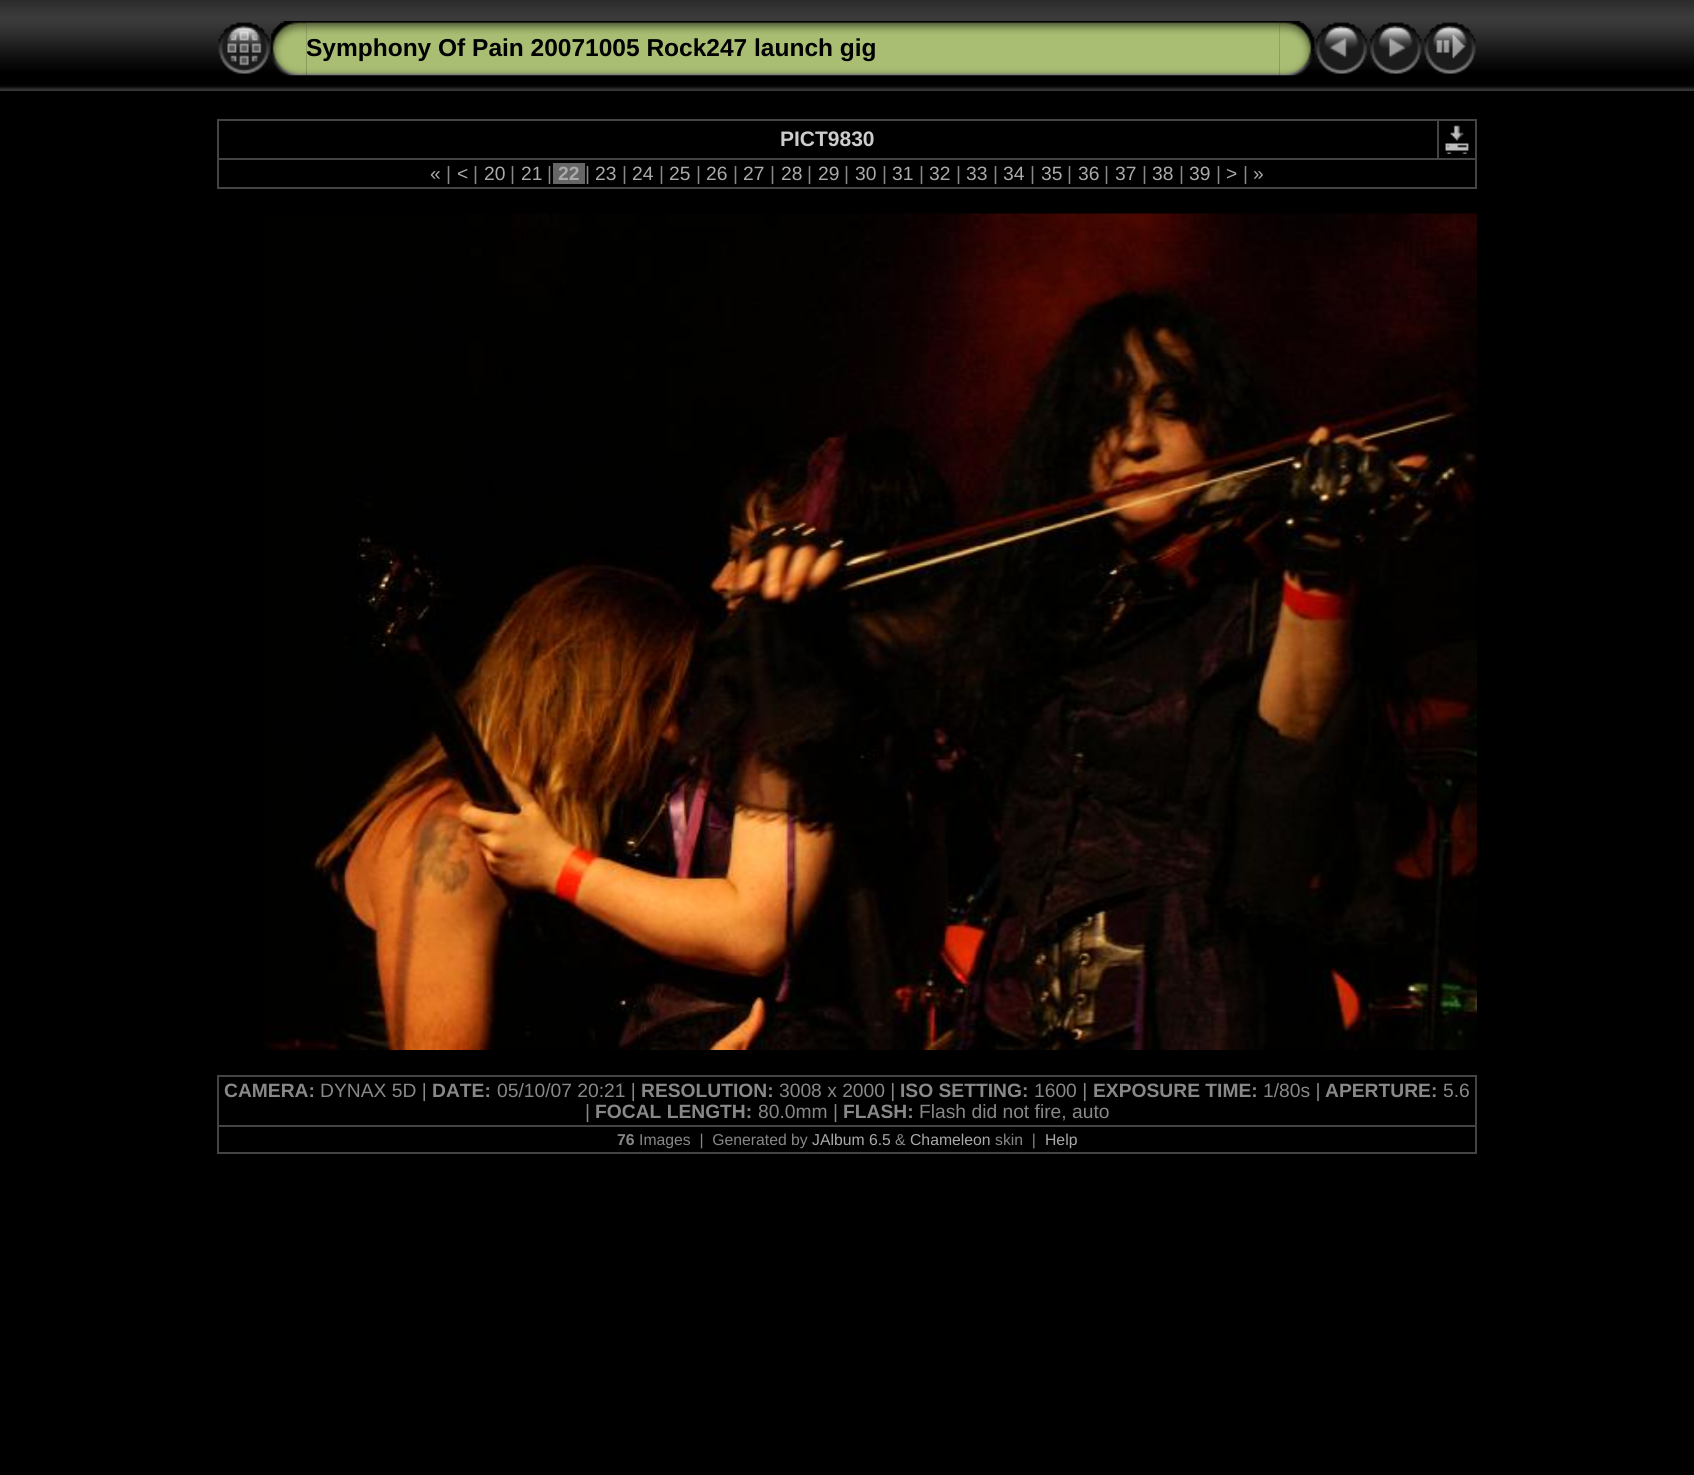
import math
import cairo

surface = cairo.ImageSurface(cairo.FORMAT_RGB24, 1694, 1475)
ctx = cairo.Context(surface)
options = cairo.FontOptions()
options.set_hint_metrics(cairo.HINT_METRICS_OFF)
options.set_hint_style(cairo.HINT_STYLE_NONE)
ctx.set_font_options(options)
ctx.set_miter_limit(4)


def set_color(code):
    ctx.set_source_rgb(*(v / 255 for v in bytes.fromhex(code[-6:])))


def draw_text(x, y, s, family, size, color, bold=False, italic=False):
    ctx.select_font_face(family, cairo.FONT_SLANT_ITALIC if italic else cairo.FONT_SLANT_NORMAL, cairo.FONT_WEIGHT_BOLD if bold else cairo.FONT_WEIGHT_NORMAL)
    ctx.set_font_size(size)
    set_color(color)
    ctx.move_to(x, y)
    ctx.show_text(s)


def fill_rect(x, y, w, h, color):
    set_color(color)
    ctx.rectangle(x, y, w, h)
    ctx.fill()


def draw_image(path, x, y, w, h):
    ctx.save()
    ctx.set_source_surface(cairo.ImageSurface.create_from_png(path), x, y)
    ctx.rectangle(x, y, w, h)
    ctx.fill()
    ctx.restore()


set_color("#000000")
ctx.paint()
draw_image("assets/img1.png", 0, 0, 1694, 91)
draw_image("assets/img2.png", 218, 22, 52, 52)
draw_image("assets/img4.png", 306, 21, 974, 55)
draw_image("assets/img3.png", 271, 21, 36, 55)
draw_text(306, 56, "Symphony Of Pain 20071005 Rock247 launch gig", "Liberation Sans", 24.5, "#000000", bold=True)
draw_image("assets/img5.png", 1279, 21, 36, 55)
draw_image("assets/img6.png", 1315, 22, 53, 52)
draw_image("assets/img7.png", 1370, 22, 52, 52)
draw_image("assets/img8.png", 1424, 22, 52, 52)
fill_rect(217, 119, 1260, 2, "#444444")
fill_rect(1475, 119, 2, 70, "#444444")
fill_rect(217, 187, 1260, 2, "#444444")
fill_rect(217, 119, 2, 70, "#444444")
draw_text(780, 146, "PICT9830", "Liberation Sans", 21, "#cccccc", bold=True)
fill_rect(217, 158, 1260, 2, "#444444")
fill_rect(1437, 119, 2, 40, "#444444")
draw_image("assets/img9.png", 1445, 125, 24, 29)
draw_text(430, 180, "«", "Liberation Sans", 19.25, "#aaaaaa")
draw_text(446, 180, "|", "Liberation Sans", 19.25, "#888888")
draw_text(457, 180, "<", "Liberation Sans", 19.25, "#aaaaaa")
draw_text(473, 180, "|", "Liberation Sans", 19.25, "#888888")
draw_text(484, 180, "20", "Liberation Sans", 19.25, "#aaaaaa")
draw_text(510, 180, "|", "Liberation Sans", 19.25, "#888888")
draw_text(521, 180, "21", "Liberation Sans", 19.25, "#aaaaaa")
draw_text(547, 180, "|", "Liberation Sans", 19.25, "#888888")
fill_rect(553, 163, 32, 21, "#666666")
draw_text(558, 180, "22", "Liberation Sans", 19.25, "#aaaaaa", bold=True)
draw_text(585, 180, "|", "Liberation Sans", 19.25, "#888888")
draw_text(595, 180, "23", "Liberation Sans", 19.25, "#aaaaaa")
draw_text(622, 180, "|", "Liberation Sans", 19.25, "#888888")
draw_text(632, 180, "24", "Liberation Sans", 19.25, "#aaaaaa")
draw_text(659, 180, "|", "Liberation Sans", 19.25, "#888888")
draw_text(669, 180, "25", "Liberation Sans", 19.25, "#aaaaaa")
draw_text(696, 180, "|", "Liberation Sans", 19.25, "#888888")
draw_text(706, 180, "26", "Liberation Sans", 19.25, "#aaaaaa")
draw_text(733, 180, "|", "Liberation Sans", 19.25, "#888888")
draw_text(743, 180, "27", "Liberation Sans", 19.25, "#aaaaaa")
draw_text(770, 180, "|", "Liberation Sans", 19.25, "#888888")
draw_text(781, 180, "28", "Liberation Sans", 19.25, "#aaaaaa")
draw_text(807, 180, "|", "Liberation Sans", 19.25, "#888888")
draw_text(818, 180, "29", "Liberation Sans", 19.25, "#aaaaaa")
draw_text(844, 180, "|", "Liberation Sans", 19.25, "#888888")
draw_text(855, 180, "30", "Liberation Sans", 19.25, "#aaaaaa")
draw_text(882, 180, "|", "Liberation Sans", 19.25, "#888888")
draw_text(892, 180, "31", "Liberation Sans", 19.25, "#aaaaaa")
draw_text(919, 180, "|", "Liberation Sans", 19.25, "#888888")
draw_text(929, 180, "32", "Liberation Sans", 19.25, "#aaaaaa")
draw_text(956, 180, "|", "Liberation Sans", 19.25, "#888888")
draw_text(966, 180, "33", "Liberation Sans", 19.25, "#aaaaaa")
draw_text(993, 180, "|", "Liberation Sans", 19.25, "#888888")
draw_text(1003, 180, "34", "Liberation Sans", 19.25, "#aaaaaa")
draw_text(1030, 180, "|", "Liberation Sans", 19.25, "#888888")
draw_text(1041, 180, "35", "Liberation Sans", 19.25, "#aaaaaa")
draw_text(1067, 180, "|", "Liberation Sans", 19.25, "#888888")
draw_text(1078, 180, "36", "Liberation Sans", 19.25, "#aaaaaa")
draw_text(1104, 180, "|", "Liberation Sans", 19.25, "#888888")
draw_text(1115, 180, "37", "Liberation Sans", 19.25, "#aaaaaa")
draw_text(1142, 180, "|", "Liberation Sans", 19.25, "#888888")
draw_text(1152, 180, "38", "Liberation Sans", 19.25, "#aaaaaa")
draw_text(1179, 180, "|", "Liberation Sans", 19.25, "#888888")
draw_text(1189, 180, "39", "Liberation Sans", 19.25, "#aaaaaa")
draw_text(1216, 180, "|", "Liberation Sans", 19.25, "#888888")
draw_text(1226, 180, ">", "Liberation Sans", 19.25, "#aaaaaa")
draw_text(1243, 180, "|", "Liberation Sans", 19.25, "#888888")
draw_text(1253, 180, "»", "Liberation Sans", 19.25, "#aaaaaa")
draw_image("assets/img10.png", 263, 213, 1214, 837)
fill_rect(217, 1075, 1260, 2, "#444444")
fill_rect(1475, 1075, 2, 78, "#444444")
fill_rect(217, 1152, 1260, 2, "#444444")
fill_rect(217, 1075, 2, 78, "#444444")
draw_text(224, 1097, "CAMERA:", "Liberation Sans", 19.25, "#888888", bold=True)
draw_text(320, 1097, "DYNAX 5D |", "Liberation Sans", 19.25, "#888888")
draw_text(432, 1097, "DATE:", "Liberation Sans", 19.25, "#888888", bold=True)
draw_text(497, 1097, "05/10/07 20:21 |", "Liberation Sans", 19.25, "#888888")
draw_text(641, 1097, "RESOLUTION:", "Liberation Sans", 19.25, "#888888", bold=True)
draw_text(779, 1097, "3008 x 2000 |", "Liberation Sans", 19.25, "#888888")
draw_text(900, 1097, "ISO SETTING:", "Liberation Sans", 19.25, "#888888", bold=True)
draw_text(1034, 1097, "1600 |", "Liberation Sans", 19.25, "#888888")
draw_text(1093, 1097, "EXPOSURE TIME:", "Liberation Sans", 19.25, "#888888", bold=True)
draw_text(1263, 1097, "1/80s |", "Liberation Sans", 19.25, "#888888")
draw_text(1325, 1097, "APERTURE:", "Liberation Sans", 19.25, "#888888", bold=True)
draw_text(1443, 1097, "5.6", "Liberation Sans", 19.25, "#888888")
draw_text(585, 1118, "|", "Liberation Sans", 19.25, "#888888")
draw_text(595, 1118, "FOCAL LENGTH:", "Liberation Sans", 19.25, "#888888", bold=True)
draw_text(758, 1118, "80.0mm |", "Liberation Sans", 19.25, "#888888")
draw_text(843, 1118, "FLASH:", "Liberation Sans", 19.25, "#888888", bold=True)
draw_text(919, 1118, "Flash did not fire, auto", "Liberation Sans", 19.25, "#888888")
fill_rect(217, 1125, 1260, 2, "#444444")
draw_text(617, 1145, "76", "Liberation Sans", 15.75, "#888888", bold=True)
draw_text(639, 1145, "Images  |  Generated by", "Liberation Sans", 15.75, "#888888")
draw_text(812, 1145, "JAlbum 6.5", "Liberation Sans", 15.75, "#aaaaaa")
draw_text(895, 1145, "&", "Liberation Sans", 15.75, "#888888")
draw_text(910, 1145, "Chameleon", "Liberation Sans", 15.75, "#aaaaaa")
draw_text(995, 1145, "skin  |", "Liberation Sans", 15.75, "#888888")
draw_text(1045, 1145, "Help", "Liberation Sans", 15.75, "#aaaaaa")
surface.write_to_png("output.png")
